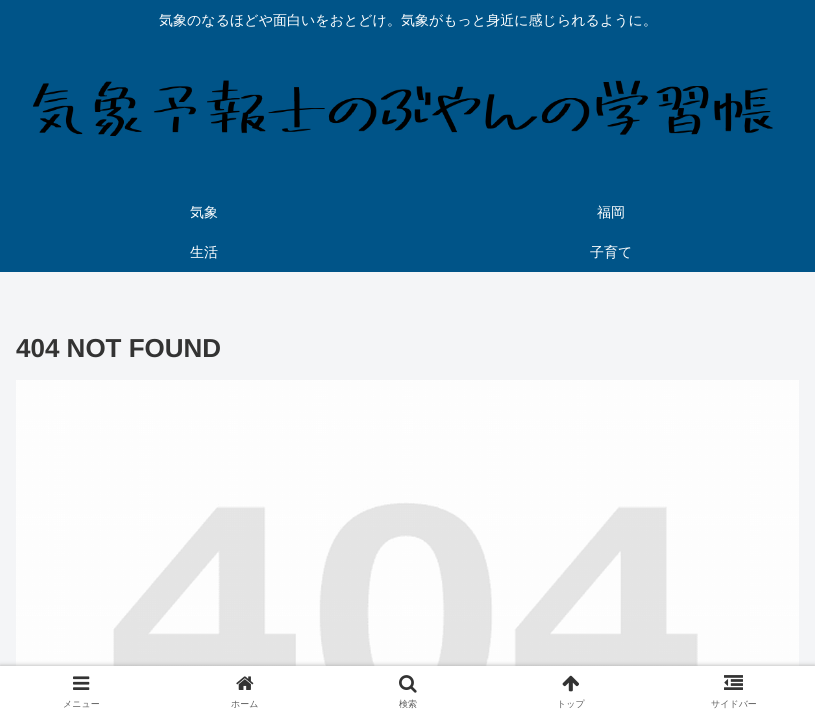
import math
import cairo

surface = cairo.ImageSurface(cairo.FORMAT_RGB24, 815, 716)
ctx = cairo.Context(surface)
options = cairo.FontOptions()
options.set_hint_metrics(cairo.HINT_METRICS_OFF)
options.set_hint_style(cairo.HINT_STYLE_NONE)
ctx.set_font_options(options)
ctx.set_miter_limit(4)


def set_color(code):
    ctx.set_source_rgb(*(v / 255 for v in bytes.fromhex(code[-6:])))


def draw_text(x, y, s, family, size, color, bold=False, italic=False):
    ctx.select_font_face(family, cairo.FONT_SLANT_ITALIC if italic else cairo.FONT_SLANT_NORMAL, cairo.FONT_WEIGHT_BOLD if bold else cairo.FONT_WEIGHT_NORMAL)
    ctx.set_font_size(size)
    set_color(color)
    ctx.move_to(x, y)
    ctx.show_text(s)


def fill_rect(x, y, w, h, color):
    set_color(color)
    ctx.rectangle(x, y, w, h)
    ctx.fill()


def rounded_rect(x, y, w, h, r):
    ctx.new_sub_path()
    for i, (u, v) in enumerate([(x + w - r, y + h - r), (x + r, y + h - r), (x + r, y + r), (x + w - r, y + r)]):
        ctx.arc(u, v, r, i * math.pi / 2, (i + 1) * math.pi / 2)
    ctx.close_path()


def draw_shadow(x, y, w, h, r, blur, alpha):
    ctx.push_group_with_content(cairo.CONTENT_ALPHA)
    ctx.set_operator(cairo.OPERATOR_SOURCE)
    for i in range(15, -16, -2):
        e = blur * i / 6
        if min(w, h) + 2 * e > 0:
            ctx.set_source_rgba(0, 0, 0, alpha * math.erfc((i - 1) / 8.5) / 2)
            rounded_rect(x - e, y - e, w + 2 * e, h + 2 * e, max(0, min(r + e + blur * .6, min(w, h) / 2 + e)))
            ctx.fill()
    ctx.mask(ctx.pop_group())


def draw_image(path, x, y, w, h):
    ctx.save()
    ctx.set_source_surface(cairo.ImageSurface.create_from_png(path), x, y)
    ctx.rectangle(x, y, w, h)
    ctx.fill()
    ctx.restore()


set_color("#f4f5f7")
ctx.paint()
fill_rect(0, 0, 815, 272, "#005488")
draw_text(159, 25, "気象のなるほどや面白いをおとどけ。気象がもっと身近に感じられるように。", "WenQuanYi Zen Hei Medium", 14, "#ffffff")
draw_image("assets/img1.png", 33, 80, 740, 56)
draw_text(190, 217, "気象", "WenQuanYi Zen Hei Medium", 14, "#ffffff")
draw_text(597, 217, "福岡", "WenQuanYi Zen Hei Medium", 14, "#ffffff")
draw_text(190, 257, "生活", "WenQuanYi Zen Hei Medium", 14, "#ffffff")
draw_text(590, 257, "子育て", "WenQuanYi Zen Hei Medium", 14, "#ffffff")
draw_text(16, 357, "404 NOT FOUND", "Liberation Sans", 26, "#333333", bold=True)
draw_image("assets/img2.png", 16, 380, 783, 286)
set_color("#a9a9a9")
draw_shadow(0, 666, 815, 50, 0, 2.5, 1)
fill_rect(0, 666, 815, 50, "#ffffff")
draw_image("assets/img3.png", 73, 676, 17, 14)
draw_text(63, 707, "メニュー", "WenQuanYi Zen Hei Medium", 9, "#5c5c5c")
draw_image("assets/img4.png", 236, 676, 18, 14)
draw_text(231, 707, "ホーム", "WenQuanYi Zen Hei Medium", 9, "#5c5c5c")
draw_image("assets/img5.png", 399, 675, 18, 18)
draw_text(399, 707, "検索", "WenQuanYi Zen Hei Medium", 9, "#5c5c5c")
draw_image("assets/img6.png", 562, 675, 17, 17)
draw_text(557, 707, "トップ", "WenQuanYi Zen Hei Medium", 9, "#5c5c5c")
draw_image("assets/img7.png", 724, 675, 19, 15)
draw_text(711, 707, "サイドバー", "WenQuanYi Zen Hei Medium", 9, "#5c5c5c")
surface.write_to_png("output.png")
